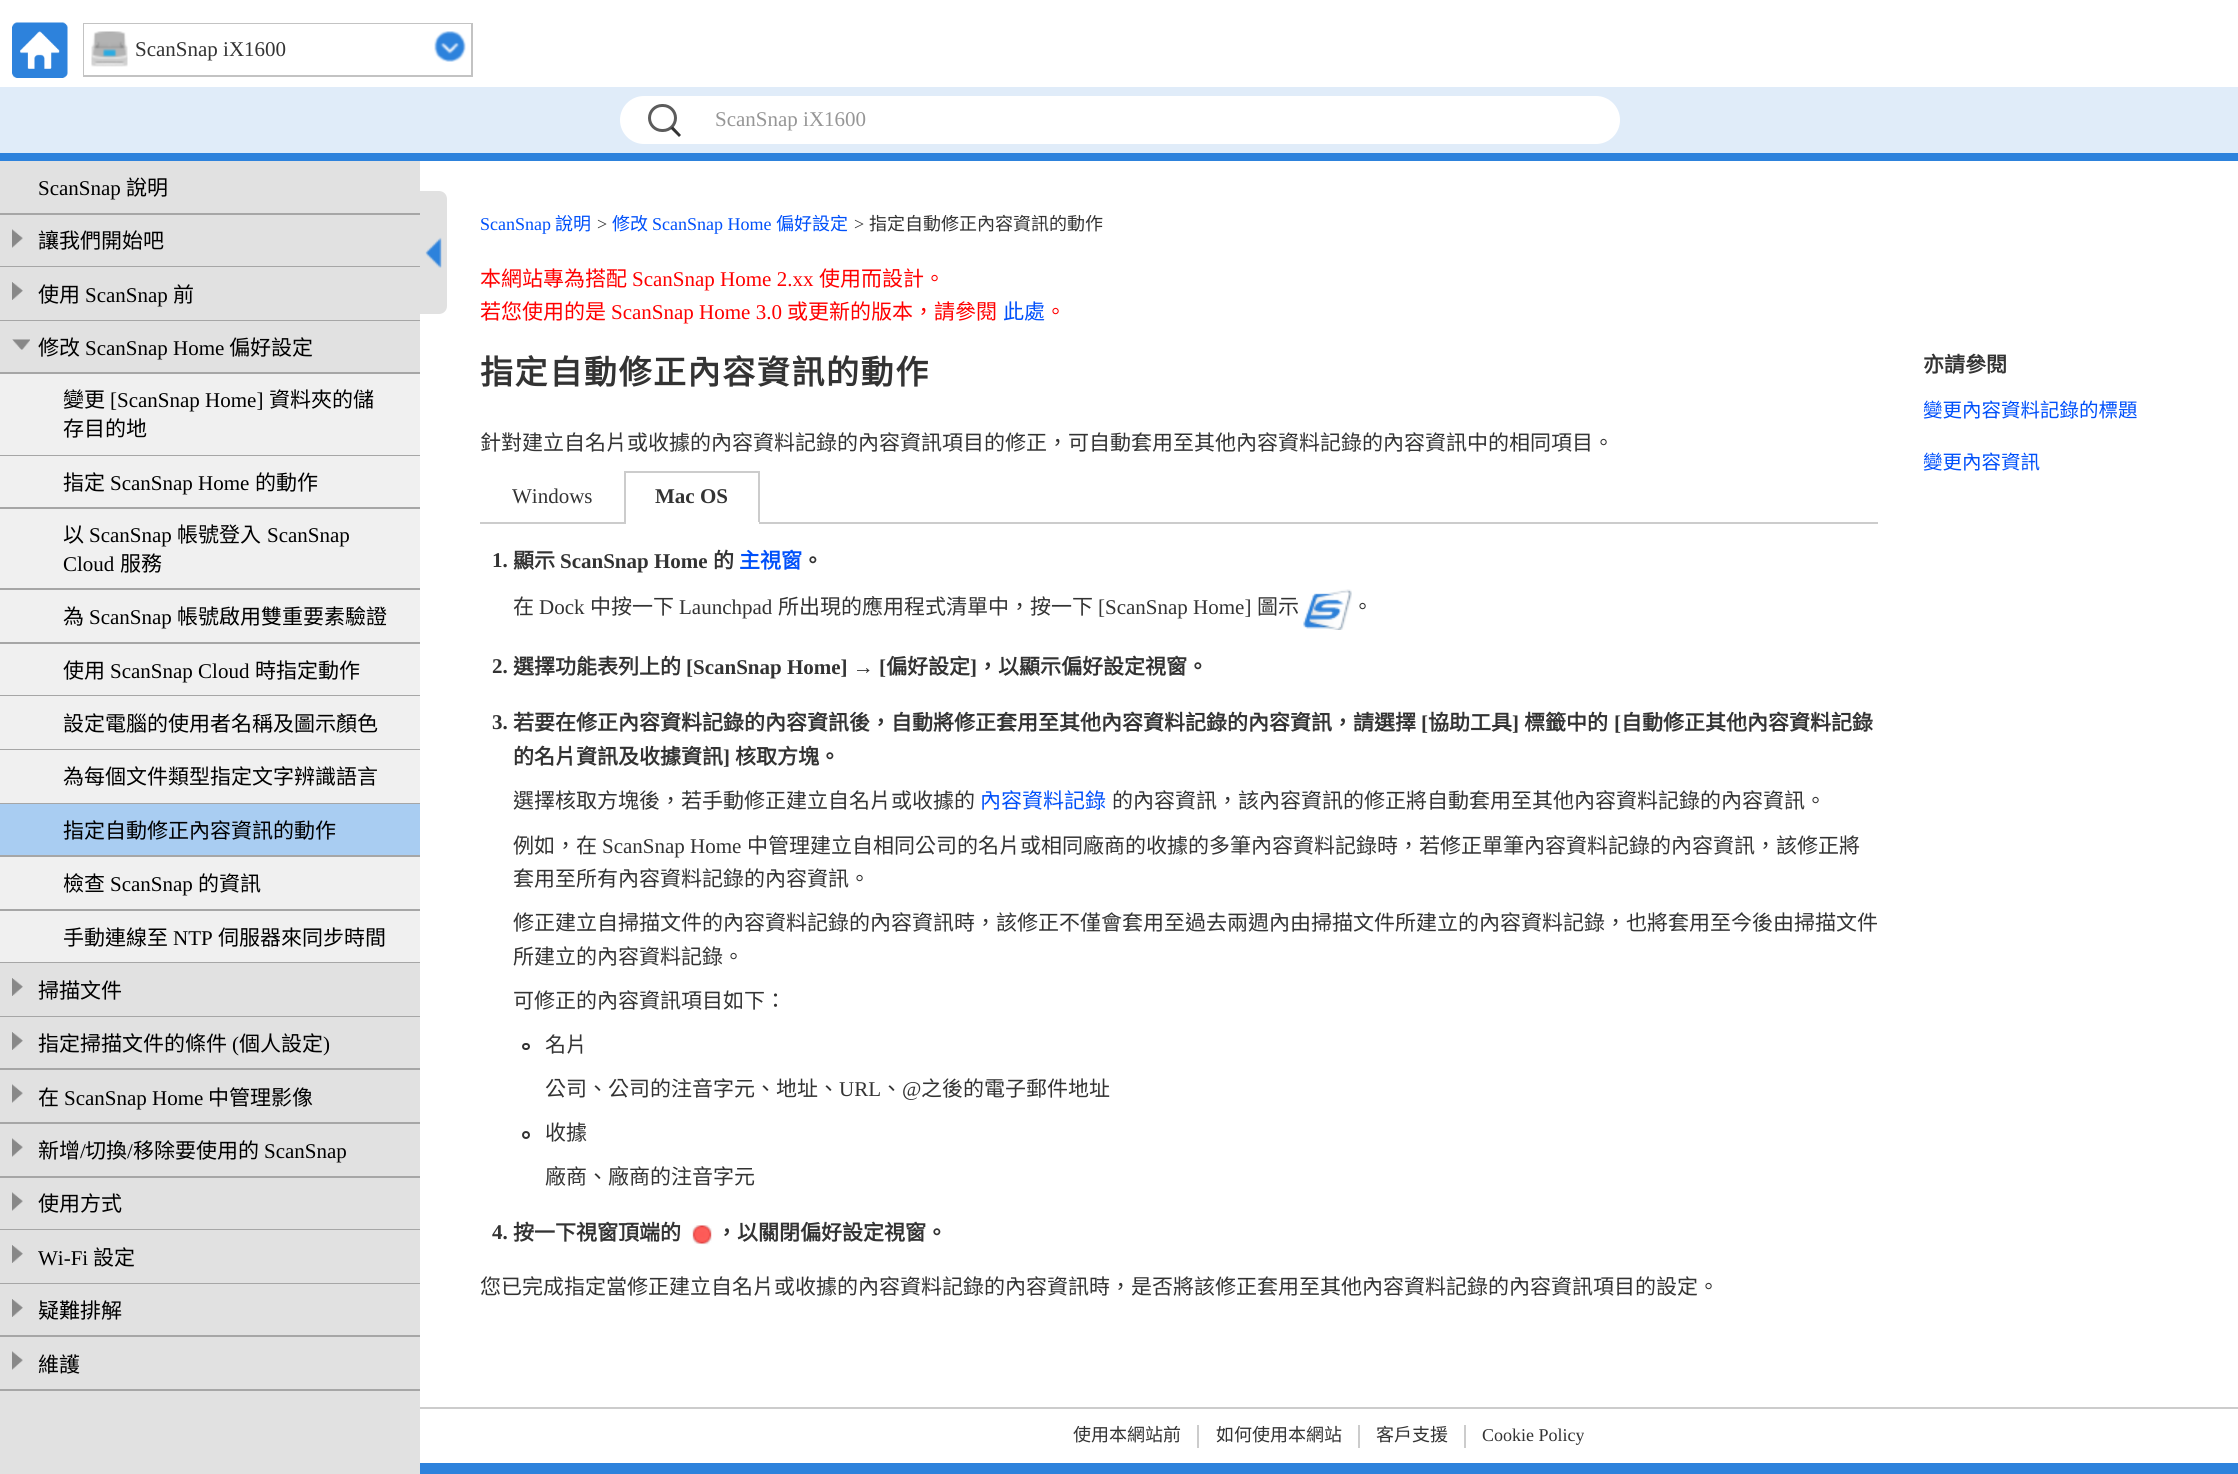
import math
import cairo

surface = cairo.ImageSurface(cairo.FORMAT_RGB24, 2238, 1474)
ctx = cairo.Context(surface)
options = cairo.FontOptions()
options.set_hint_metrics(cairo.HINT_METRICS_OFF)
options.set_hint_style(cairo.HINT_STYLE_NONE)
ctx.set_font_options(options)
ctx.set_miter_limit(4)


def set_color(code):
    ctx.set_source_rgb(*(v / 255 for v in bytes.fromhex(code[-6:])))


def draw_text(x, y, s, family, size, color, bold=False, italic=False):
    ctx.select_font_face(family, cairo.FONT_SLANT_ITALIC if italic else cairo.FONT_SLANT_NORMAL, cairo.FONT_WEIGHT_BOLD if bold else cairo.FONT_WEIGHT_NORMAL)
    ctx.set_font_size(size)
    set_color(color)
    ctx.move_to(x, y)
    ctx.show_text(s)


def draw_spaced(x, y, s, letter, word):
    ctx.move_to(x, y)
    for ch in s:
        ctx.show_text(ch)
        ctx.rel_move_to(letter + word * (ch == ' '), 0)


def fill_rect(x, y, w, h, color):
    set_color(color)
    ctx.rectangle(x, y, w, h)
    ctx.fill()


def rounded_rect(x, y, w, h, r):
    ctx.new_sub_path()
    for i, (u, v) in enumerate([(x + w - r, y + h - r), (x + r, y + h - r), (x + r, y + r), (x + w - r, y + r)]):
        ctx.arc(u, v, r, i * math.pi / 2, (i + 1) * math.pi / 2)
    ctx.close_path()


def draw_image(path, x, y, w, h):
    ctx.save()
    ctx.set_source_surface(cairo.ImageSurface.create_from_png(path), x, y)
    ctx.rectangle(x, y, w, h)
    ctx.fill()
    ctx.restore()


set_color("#ffffff")
ctx.paint()
ctx.rectangle(84, 24, 388, 52)
set_color("#c3c3c3")
ctx.stroke()
fill_rect(84, 24, 387, 51, "#ffffff")
draw_image("assets/img1.png", 91, 31, 37, 36)
draw_text(135, 56, "ScanSnap iX1600", "Liberation Serif", 21, "#333333")
draw_image("assets/img2.png", 434, 31, 32, 31)
fill_rect(0, 153, 2238, 8, "#2d82dc")
draw_image("assets/img3.png", 12, 22, 56, 56)
fill_rect(0, 87, 2238, 66, "#e0ecf9")
set_color("#ffffff")
rounded_rect(620, 96, 1000, 48, 24)
ctx.fill()
rounded_rect(649.5, 105.5, 26, 25, 12.5)
set_color("#5c5c5c")
ctx.set_line_width(3)
ctx.stroke()
set_color("#333333")
ctx.new_path()
ctx.move_to(673, 126.5)
ctx.line_to(681, 135)
ctx.line_to(679, 137)
ctx.line_to(670.5, 128.5)
ctx.close_path()
ctx.fill()
draw_text(715, 126, "ScanSnap iX1600", "Liberation Serif", 21, "#969696")
fill_rect(0, 161, 420, 1313, "#e1e1e1")
fill_rect(0, 213, 420, 2, "#a6a6a6")
draw_text(38, 195, "ScanSnap", "Liberation Serif", 21, "#000000")
draw_text(126, 195, "說明", "Noto Sans CJK TC", 21, "#000000")
fill_rect(0, 266, 420, 1, "#a6a6a6")
draw_image("assets/img4.png", 12, 229, 11, 19)
draw_text(38, 248, "讓我們開始吧", "Noto Sans CJK TC", 21, "#000000")
fill_rect(0, 320, 420, 1, "#a6a6a6")
draw_image("assets/img5.png", 12, 282, 11, 18)
draw_text(38, 302, "使用", "Noto Sans CJK TC", 21, "#000000")
draw_text(85, 302, "ScanSnap", "Liberation Serif", 21, "#000000")
draw_text(173, 302, "前", "Noto Sans CJK TC", 21, "#000000")
fill_rect(0, 372, 420, 2, "#a6a6a6")
draw_image("assets/img6.png", 12, 339, 18, 11)
draw_text(38, 355, "修改", "Noto Sans CJK TC", 21, "#000000")
draw_text(85, 355, "ScanSnap Home", "Liberation Serif", 21, "#000000")
draw_text(229, 355, "偏好設定", "Noto Sans CJK TC", 21, "#000000")
fill_rect(0, 374, 420, 81, "#f0f0f0")
fill_rect(0, 455, 420, 1, "#a6a6a6")
draw_text(63, 407, "變更", "Noto Sans CJK TC", 21, "#000000")
draw_text(110, 407, "[ScanSnap Home]", "Liberation Serif", 21, "#000000")
draw_text(269, 407, "資料夾的儲", "Noto Sans CJK TC", 21, "#000000")
draw_text(63, 436, "存目的地", "Noto Sans CJK TC", 21, "#000000")
fill_rect(0, 456, 420, 51, "#f0f0f0")
fill_rect(0, 507, 420, 2, "#a6a6a6")
draw_text(63, 490, "指定", "Noto Sans CJK TC", 21, "#000000")
draw_text(110, 490, "ScanSnap Home", "Liberation Serif", 21, "#000000")
draw_text(255, 490, "的動作", "Noto Sans CJK TC", 21, "#000000")
fill_rect(0, 509, 420, 79, "#f0f0f0")
fill_rect(0, 588, 420, 2, "#a6a6a6")
draw_text(63, 542, "以", "Noto Sans CJK TC", 21, "#000000")
draw_text(89, 542, "ScanSnap", "Liberation Serif", 21, "#000000")
draw_text(177, 542, "帳號登入", "Noto Sans CJK TC", 21, "#000000")
draw_text(267, 542, "ScanSnap", "Liberation Serif", 21, "#000000")
draw_text(63, 571, "Cloud", "Liberation Serif", 21, "#000000")
draw_text(120, 571, "服務", "Noto Sans CJK TC", 21, "#000000")
fill_rect(0, 590, 420, 52, "#f0f0f0")
fill_rect(0, 642, 420, 2, "#a6a6a6")
draw_text(63, 624, "為", "Noto Sans CJK TC", 21, "#000000")
draw_text(89, 624, "ScanSnap", "Liberation Serif", 21, "#000000")
draw_text(177, 624, "帳號啟用雙重要素驗證", "Noto Sans CJK TC", 21, "#000000")
fill_rect(0, 644, 420, 51, "#f0f0f0")
fill_rect(0, 695, 420, 1, "#a6a6a6")
draw_text(63, 678, "使用", "Noto Sans CJK TC", 21, "#000000")
draw_text(110, 678, "ScanSnap Cloud", "Liberation Serif", 21, "#000000")
draw_text(255, 678, "時指定動作", "Noto Sans CJK TC", 21, "#000000")
fill_rect(0, 696, 420, 53, "#f0f0f0")
fill_rect(0, 749, 420, 1, "#a6a6a6")
draw_text(63, 731, "設定電腦的使用者名稱及圖示顏色", "Noto Sans CJK TC", 21, "#000000")
fill_rect(0, 750, 420, 53, "#f0f0f0")
fill_rect(0, 803, 420, 1, "#a6a6a6")
draw_text(63, 784, "為每個文件類型指定文字辨識語言", "Noto Sans CJK TC", 21, "#000000")
fill_rect(0, 804, 420, 51, "#a9cdf2")
fill_rect(0, 855, 420, 2, "#a6a6a6")
draw_text(63, 838, "指定自動修正內容資訊的動作", "Noto Sans CJK TC", 21, "#000000")
fill_rect(0, 857, 420, 52, "#f0f0f0")
fill_rect(0, 909, 420, 2, "#a6a6a6")
draw_text(63, 891, "檢查", "Noto Sans CJK TC", 21, "#000000")
draw_text(110, 891, "ScanSnap", "Liberation Serif", 21, "#000000")
draw_text(198, 891, "的資訊", "Noto Sans CJK TC", 21, "#000000")
fill_rect(0, 911, 420, 51, "#f0f0f0")
fill_rect(0, 962, 420, 1, "#a6a6a6")
draw_text(63, 945, "手動連線至", "Noto Sans CJK TC", 21, "#000000")
draw_text(173, 945, "NTP", "Liberation Serif", 21, "#000000")
draw_text(218, 945, "伺服器來同步時間", "Noto Sans CJK TC", 21, "#000000")
fill_rect(0, 1016, 420, 1, "#a6a6a6")
draw_image("assets/img7.png", 12, 978, 11, 18)
draw_text(38, 998, "掃描文件", "Noto Sans CJK TC", 21, "#000000")
fill_rect(0, 1068, 420, 2, "#a6a6a6")
draw_image("assets/img7.png", 12, 1032, 11, 18)
draw_text(38, 1051, "指定掃描文件的條件", "Noto Sans CJK TC", 21, "#000000")
draw_text(232, 1051, "(", "Liberation Serif", 21, "#000000")
draw_text(239, 1051, "個人設定", "Noto Sans CJK TC", 21, "#000000")
draw_text(323, 1051, ")", "Liberation Serif", 21, "#000000")
fill_rect(0, 1122, 420, 2, "#a6a6a6")
draw_image("assets/img4.png", 12, 1084, 11, 19)
draw_text(38, 1105, "在", "Noto Sans CJK TC", 21, "#000000")
draw_text(64, 1105, "ScanSnap Home", "Liberation Serif", 21, "#000000")
draw_text(208, 1105, "中管理影像", "Noto Sans CJK TC", 21, "#000000")
fill_rect(0, 1176, 420, 2, "#a6a6a6")
draw_image("assets/img4.png", 12, 1138, 11, 19)
draw_text(38, 1158, "新增", "Noto Sans CJK TC", 21, "#000000")
draw_text(80, 1158, "/", "Liberation Serif", 21, "#000000")
draw_text(85, 1158, "切換", "Noto Sans CJK TC", 21, "#000000")
draw_text(127, 1158, "/", "Liberation Serif", 21, "#000000")
draw_text(133, 1158, "移除要使用的", "Noto Sans CJK TC", 21, "#000000")
draw_text(264, 1158, "ScanSnap", "Liberation Serif", 21, "#000000")
fill_rect(0, 1229, 420, 1, "#a6a6a6")
draw_image("assets/img8.png", 12, 1192, 11, 19)
draw_text(38, 1211, "使用方式", "Noto Sans CJK TC", 21, "#000000")
fill_rect(0, 1283, 420, 1, "#a6a6a6")
draw_image("assets/img5.png", 12, 1245, 11, 18)
draw_text(38, 1265, "Wi-Fi", "Liberation Serif", 21, "#000000")
draw_text(93, 1265, "設定", "Noto Sans CJK TC", 21, "#000000")
fill_rect(0, 1335, 420, 2, "#a6a6a6")
draw_image("assets/img7.png", 12, 1299, 11, 18)
draw_text(38, 1318, "疑難排解", "Noto Sans CJK TC", 21, "#000000")
fill_rect(0, 1389, 420, 2, "#a6a6a6")
draw_image("assets/img4.png", 12, 1351, 11, 19)
draw_text(38, 1372, "維護", "Noto Sans CJK TC", 21, "#000000")
set_color("#e1e1e1")
ctx.new_path()
ctx.move_to(420, 191)
ctx.line_to(439, 191)
ctx.curve_to(443.5, 191, 447, 194.5, 447, 199)
ctx.line_to(447, 306)
ctx.curve_to(447, 310.5, 443.5, 314, 439, 314)
ctx.line_to(420, 314)
ctx.close_path()
ctx.fill()
draw_image("assets/img9.png", 425, 237, 17, 31)
draw_text(480, 230, "ScanSnap", "Liberation Serif", 18, "#0050fa")
draw_text(555, 230, "說明", "Noto Sans CJK TC", 18, "#0050fa")
draw_text(597, 230, ">", "Liberation Serif", 18, "#333333")
draw_text(612, 230, "修改", "Noto Sans CJK TC", 18, "#0050fa")
draw_text(652, 230, "ScanSnap Home", "Liberation Serif", 18, "#0050fa")
draw_text(776, 230, "偏好設定", "Noto Sans CJK TC", 18, "#0050fa")
draw_text(854, 230, ">", "Liberation Serif", 18, "#333333")
draw_text(869, 230, "指定自動修正內容資訊的動作", "Noto Sans CJK TC", 18, "#333333")
draw_text(480, 286, "本網站專為搭配", "Noto Sans CJK TC", 21, "#ff0000")
draw_text(632, 286, "ScanSnap Home 2.xx", "Liberation Serif", 21, "#ff0000")
draw_text(819, 286, "使用而設計。", "Noto Sans CJK TC", 21, "#ff0000")
draw_text(480, 319, "若您使用的是", "Noto Sans CJK TC", 21, "#ff0000")
draw_text(611, 319, "ScanSnap Home 3.0", "Liberation Serif", 21, "#ff0000")
draw_text(787, 319, "或更新的版本，請參閱", "Noto Sans CJK TC", 21, "#ff0000")
draw_text(1003, 319, "此處", "Noto Sans CJK TC", 21, "#0050fa")
draw_text(1045, 319, "。", "Noto Sans CJK TC", 21, "#ff0000")
ctx.select_font_face("Noto Sans CJK TC", cairo.FONT_SLANT_NORMAL, cairo.FONT_WEIGHT_BOLD)
ctx.set_font_size(33)
set_color("#333333")
draw_spaced(480, 384, "指定自動修正內容資訊的動作", 1.6, 0)
draw_text(480, 450, "針對建立自名片或收據的內容資料記錄的內容資訊項目的修正，可自動套用至其他內容資料記錄的內容資訊中的相同項目。", "Noto Sans CJK TC", 21, "#333333")
draw_text(512, 503, "Windows", "Liberation Serif", 21, "#333333")
fill_rect(624, 471, 135, 2, "#cccccc")
fill_rect(480, 522, 1398, 2, "#cccccc")
fill_rect(758, 471, 2, 53, "#cccccc")
fill_rect(624, 522, 135, 2, "#ffffff")
fill_rect(624, 471, 2, 53, "#cccccc")
draw_text(655, 503, "Mac OS", "Liberation Serif", 21, "#333333", bold=True)
draw_text(492, 567, "1.", "Liberation Serif", 21, "#333333", bold=True)
draw_text(513, 568, "顯示", "Noto Sans CJK TC", 21, "#333333", bold=True)
draw_text(560, 568, "ScanSnap Home", "Liberation Serif", 21, "#333333", bold=True)
draw_text(713, 568, "的", "Noto Sans CJK TC", 21, "#333333", bold=True)
draw_text(739, 568, "主視窗", "Noto Sans CJK TC", 21, "#0050fa", bold=True)
draw_text(802, 568, "。", "Noto Sans CJK TC", 21, "#333333", bold=True)
draw_text(513, 614, "在", "Noto Sans CJK TC", 21, "#333333")
draw_text(539, 614, "Dock", "Liberation Serif", 21, "#333333")
draw_text(590, 614, "中按一下", "Noto Sans CJK TC", 21, "#333333")
draw_text(679, 614, "Launchpad", "Liberation Serif", 21, "#333333")
draw_text(778, 614, "所出現的應用程式清單中，按一下", "Noto Sans CJK TC", 21, "#333333")
draw_text(1098, 614, "[ScanSnap Home]", "Liberation Serif", 21, "#333333")
draw_text(1257, 614, "圖示", "Noto Sans CJK TC", 21, "#333333")
draw_image("assets/img10.png", 1303, 589, 49, 41)
draw_text(1352, 614, "。", "Noto Sans CJK TC", 21, "#333333")
draw_text(492, 673, "2.", "Liberation Serif", 21, "#333333", bold=True)
draw_text(513, 674, "選擇功能表列上的", "Noto Sans CJK TC", 21, "#333333", bold=True)
draw_text(686, 674, "[ScanSnap Home] → [", "Liberation Serif", 21, "#333333", bold=True)
draw_text(886, 674, "偏好設定", "Noto Sans CJK TC", 21, "#333333", bold=True)
draw_text(970, 674, "]", "Liberation Serif", 21, "#333333", bold=True)
draw_text(977, 674, "，以顯示偏好設定視窗。", "Noto Sans CJK TC", 21, "#333333", bold=True)
draw_text(492, 729, "3.", "Liberation Serif", 21, "#333333", bold=True)
draw_text(513, 730, "若要在修正內容資料記錄的內容資訊後，自動將修正套用至其他內容資料記錄的內容資訊，請選擇", "Noto Sans CJK TC", 21, "#333333", bold=True)
draw_text(1421, 730, "[", "Liberation Serif", 21, "#333333", bold=True)
draw_text(1428, 730, "協助工具", "Noto Sans CJK TC", 21, "#333333", bold=True)
draw_text(1512, 730, "]", "Liberation Serif", 21, "#333333", bold=True)
draw_text(1524, 730, "標籤中的", "Noto Sans CJK TC", 21, "#333333", bold=True)
draw_text(1614, 730, "[", "Liberation Serif", 21, "#333333", bold=True)
draw_text(1621, 730, "自動修正其他內容資料記錄", "Noto Sans CJK TC", 21, "#333333", bold=True)
draw_text(513, 764, "的名片資訊及收據資訊", "Noto Sans CJK TC", 21, "#333333", bold=True)
draw_text(723, 764, "]", "Liberation Serif", 21, "#333333", bold=True)
draw_text(735, 764, "核取方塊。", "Noto Sans CJK TC", 21, "#333333", bold=True)
draw_text(513, 808, "選擇核取方塊後，若手動修正建立自名片或收據的", "Noto Sans CJK TC", 21, "#333333")
draw_text(980, 808, "內容資料記錄", "Noto Sans CJK TC", 21, "#0050fa")
draw_text(1112, 808, "的內容資訊，該內容資訊的修正將自動套用至其他內容資料記錄的內容資訊。", "Noto Sans CJK TC", 21, "#333333")
draw_text(513, 853, "例如，在", "Noto Sans CJK TC", 21, "#333333")
draw_text(602, 853, "ScanSnap Home", "Liberation Serif", 21, "#333333")
draw_text(747, 853, "中管理建立自相同公司的名片或相同廠商的收據的多筆內容資料記錄時，若修正單筆內容資料記錄的內容資訊，該修正將", "Noto Sans CJK TC", 21, "#333333")
draw_text(513, 886, "套用至所有內容資料記錄的內容資訊。", "Noto Sans CJK TC", 21, "#333333")
draw_text(513, 930, "修正建立自掃描文件的內容資料記錄的內容資訊時，該修正不僅會套用至過去兩週內由掃描文件所建立的內容資料記錄，也將套用至今後由掃描文件", "Noto Sans CJK TC", 21, "#333333")
draw_text(513, 964, "所建立的內容資料記錄。", "Noto Sans CJK TC", 21, "#333333")
draw_text(513, 1008, "可修正的內容資訊項目如下：", "Noto Sans CJK TC", 21, "#333333")
rounded_rect(523, 1044, 6, 5, 2.5)
ctx.set_line_width(2)
ctx.stroke()
draw_text(545, 1052, "名片", "Noto Sans CJK TC", 21, "#333333")
draw_text(545, 1096, "公司、公司的注音字元、地址、", "Noto Sans CJK TC", 21, "#333333")
draw_text(839, 1096, "URL", "Liberation Serif", 21, "#333333")
draw_text(881, 1096, "、", "Noto Sans CJK TC", 21, "#333333")
draw_text(902, 1096, "@", "Liberation Serif", 21, "#333333")
draw_text(921, 1096, "之後的電子郵件地址", "Noto Sans CJK TC", 21, "#333333")
ctx.new_path()
ctx.arc(526, 1135, 3, 0, 2 * math.pi)
ctx.stroke()
draw_text(545, 1140, "收據", "Noto Sans CJK TC", 21, "#333333")
draw_text(545, 1184, "廠商、廠商的注音字元", "Noto Sans CJK TC", 21, "#333333")
draw_text(492, 1239, "4.", "Liberation Serif", 21, "#333333", bold=True)
draw_text(513, 1240, "按一下視窗頂端的", "Noto Sans CJK TC", 21, "#333333", bold=True)
draw_image("assets/img11.png", 692, 1225, 20, 20)
draw_text(716, 1240, "，以關閉偏好設定視窗。", "Noto Sans CJK TC", 21, "#333333", bold=True)
draw_text(480, 1294, "您已完成指定當修正建立自名片或收據的內容資料記錄的內容資訊時，是否將該修正套用至其他內容資料記錄的內容資訊項目的設定。", "Noto Sans CJK TC", 21, "#333333")
draw_text(1923, 372, "亦請參閱", "Noto Sans CJK TC", 21, "#333333", bold=True)
draw_text(1923, 417, "變更內容資料記錄的標題", "Noto Sans CJK TC", 19.5, "#0050fa")
draw_text(1923, 469, "變更內容資訊", "Noto Sans CJK TC", 19.5, "#0050fa")
fill_rect(420, 1407, 1818, 2, "#cccccc")
draw_text(1073, 1441, "使用本網站前", "Noto Sans CJK TC", 18, "#333333")
fill_rect(1197, 1425, 2, 23, "#cccccc")
draw_text(1216, 1441, "如何使用本網站", "Noto Sans CJK TC", 18, "#333333")
fill_rect(1358, 1425, 2, 23, "#cccccc")
draw_text(1376, 1441, "客戶支援", "Noto Sans CJK TC", 18, "#333333")
fill_rect(1464, 1425, 2, 23, "#cccccc")
draw_text(1482, 1441, "Cookie Policy", "Liberation Serif", 18, "#333333")
fill_rect(420, 1463, 1818, 11, "#2d82dc")
surface.write_to_png("output.png")
